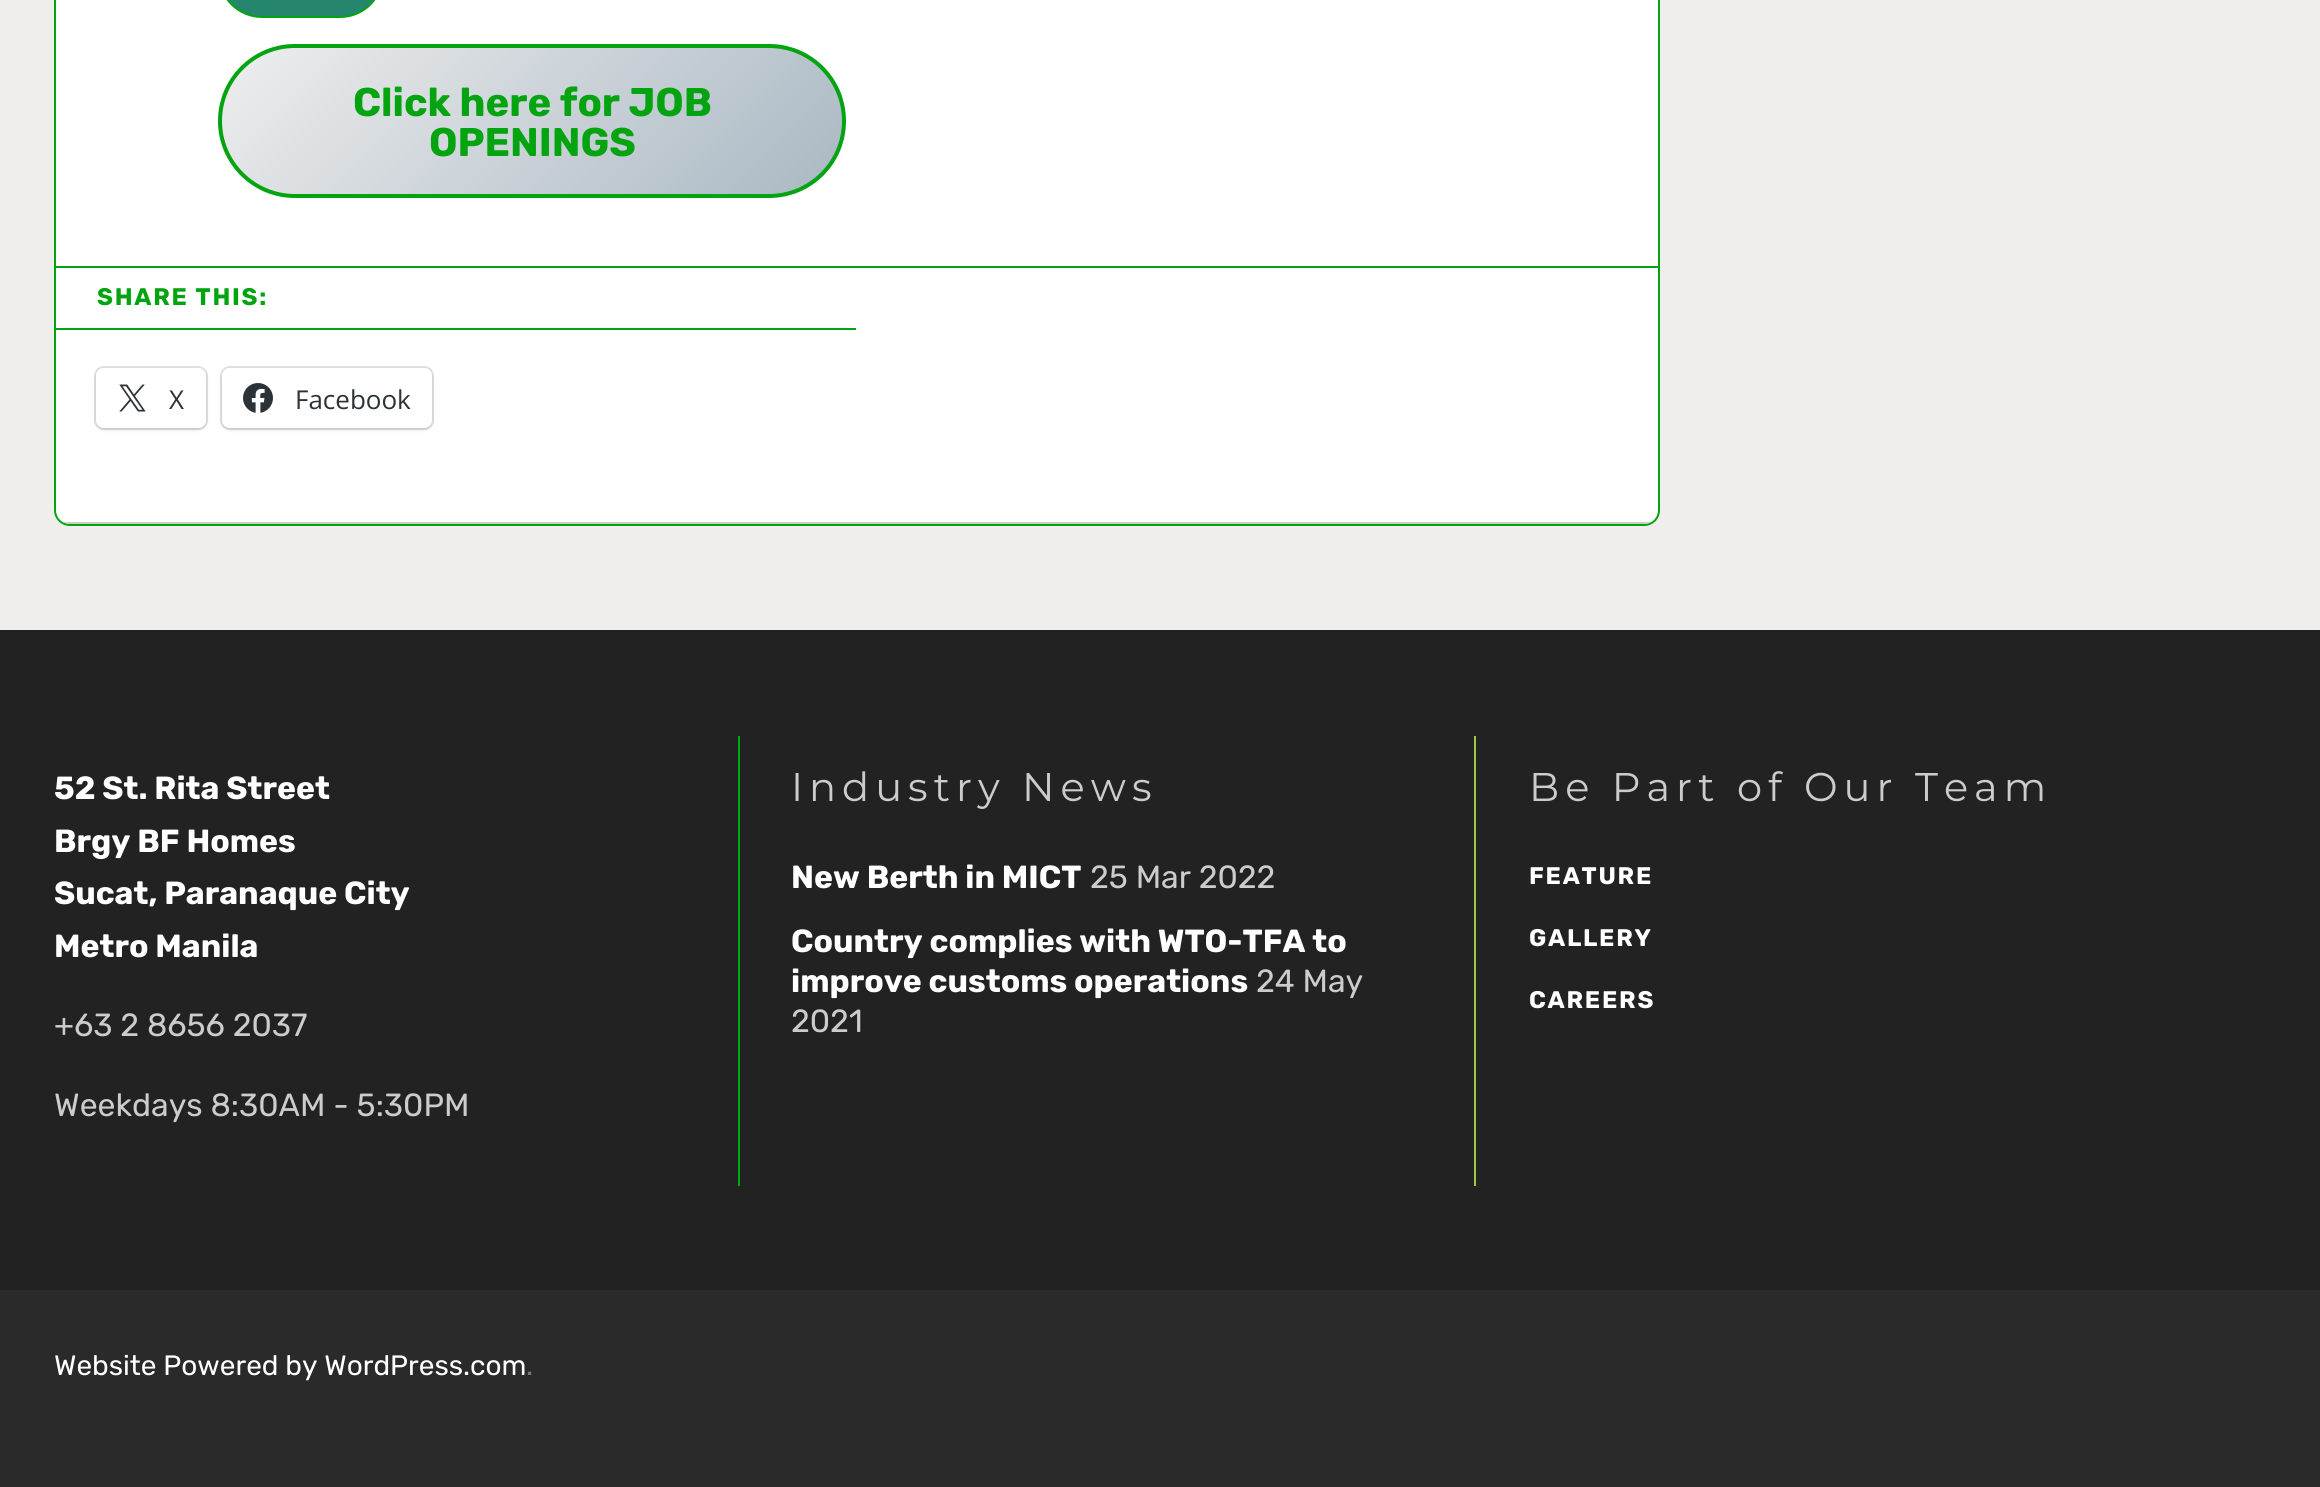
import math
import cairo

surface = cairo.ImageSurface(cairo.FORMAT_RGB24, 2320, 1487)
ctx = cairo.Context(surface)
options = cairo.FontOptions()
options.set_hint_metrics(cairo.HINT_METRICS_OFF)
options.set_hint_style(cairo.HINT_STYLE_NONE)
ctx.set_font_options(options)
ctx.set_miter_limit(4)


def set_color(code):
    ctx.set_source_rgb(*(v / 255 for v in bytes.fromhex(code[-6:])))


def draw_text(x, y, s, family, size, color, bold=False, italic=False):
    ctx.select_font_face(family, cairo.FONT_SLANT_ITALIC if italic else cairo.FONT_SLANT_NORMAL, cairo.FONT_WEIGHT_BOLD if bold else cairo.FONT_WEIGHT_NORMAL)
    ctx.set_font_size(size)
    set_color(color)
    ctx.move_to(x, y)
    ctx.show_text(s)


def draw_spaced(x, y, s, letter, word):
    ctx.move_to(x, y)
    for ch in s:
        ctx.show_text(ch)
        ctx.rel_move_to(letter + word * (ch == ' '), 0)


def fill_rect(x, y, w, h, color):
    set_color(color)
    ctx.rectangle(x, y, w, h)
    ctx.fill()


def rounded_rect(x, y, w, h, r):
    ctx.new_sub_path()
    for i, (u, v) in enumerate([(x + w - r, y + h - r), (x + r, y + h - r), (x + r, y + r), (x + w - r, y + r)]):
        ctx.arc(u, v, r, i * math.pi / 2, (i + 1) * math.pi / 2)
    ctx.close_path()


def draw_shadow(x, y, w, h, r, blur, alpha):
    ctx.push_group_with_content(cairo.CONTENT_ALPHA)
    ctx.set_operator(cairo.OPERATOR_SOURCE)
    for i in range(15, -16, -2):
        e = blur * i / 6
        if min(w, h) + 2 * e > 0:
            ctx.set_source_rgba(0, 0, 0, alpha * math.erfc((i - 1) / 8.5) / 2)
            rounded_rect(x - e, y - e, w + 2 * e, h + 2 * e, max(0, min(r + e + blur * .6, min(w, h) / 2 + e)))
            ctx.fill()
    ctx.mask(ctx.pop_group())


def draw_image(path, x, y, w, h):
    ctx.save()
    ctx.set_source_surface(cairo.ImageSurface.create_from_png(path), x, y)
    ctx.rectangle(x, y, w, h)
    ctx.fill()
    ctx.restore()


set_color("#f0eeec")
ctx.paint()
set_color("#ffffff")
ctx.new_path()
ctx.move_to(55, -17)
ctx.line_to(1659, -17)
ctx.line_to(1659, 510)
ctx.curve_to(1659, 518.5, 1652.5, 525, 1644, 525)
ctx.line_to(70, 525)
ctx.curve_to(61.5, 525, 55, 518.5, 55, 510)
ctx.close_path()
ctx.fill_preserve()
set_color("#03a410")
ctx.stroke()
set_color("#26866d")
rounded_rect(219, -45, 164, 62, 43)
ctx.fill_preserve()
set_color("#03a410")
ctx.stroke()
ctx.save()
rounded_rect(218, 44, 628, 154, 77)
ctx.clip()
gradient = cairo.LinearGradient(341, -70, 724, 313)
gradient.add_color_stop_rgba(0, 0.933, 0.933, 0.933, 1)
gradient.add_color_stop_rgba(1, 0.663, 0.722, 0.765, 1)
ctx.set_source(gradient)
ctx.rectangle(222, 48, 620, 146)
ctx.fill()
ctx.restore()
rounded_rect(220, 46, 624, 150, 75)
ctx.set_line_width(4)
ctx.stroke()
draw_text(353, 116, "Click here for JOB", "Rubik", 40, "#03a410", bold=True)
draw_text(429, 156, "OPENINGS", "Rubik", 40, "#03a410", bold=True)
fill_rect(56, 266, 1602, 2, "#03a410")
ctx.set_font_size(24)
draw_spaced(97, 305, "SHARE THIS:", 1.75, 0)
fill_rect(56, 328, 800, 2, "#03a410")
rounded_rect(95, 367, 112, 62, 9)
set_color("#e0e0e0")
ctx.set_line_width(2)
ctx.stroke()
set_color("#000000")
draw_shadow(96, 370, 110, 60, 8, 2, 0.12)
set_color("#ffffff")
rounded_rect(96, 368, 110, 60, 8)
ctx.fill()
draw_image("assets/img1.png", 119, 384, 27, 28)
draw_text(169, 409, "X", "Open Sans", 26, "#2c3338")
rounded_rect(221, 367, 212, 62, 9)
set_color("#e0e0e0")
ctx.stroke()
set_color("#000000")
draw_shadow(222, 370, 210, 60, 8, 2, 0.12)
set_color("#ffffff")
rounded_rect(222, 368, 210, 60, 8)
ctx.fill()
draw_image("assets/img2.png", 243, 383, 30, 30)
draw_text(295, 409, "Facebook", "Open Sans", 26, "#2c3338")
ctx.save()
ctx.new_path()
ctx.move_to(56, -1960)
ctx.line_to(1658, -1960)
ctx.line_to(1658, 510)
ctx.curve_to(1658, 517.5, 1651.5, 524, 1644, 524)
ctx.line_to(70, 524)
ctx.curve_to(62.5, 524, 56, 517.5, 56, 510)
ctx.close_path()
ctx.clip()
fill_rect(56, 522, 1602, 2, "#cfccc7")
ctx.restore()
fill_rect(0, 630, 2320, 660, "#222222")
draw_text(54, 799, "52 St. Rita Street", "Rubik", 32, "#ffffff", bold=True)
draw_text(54, 852, "Brgy BF Homes", "Rubik", 32, "#ffffff", bold=True)
draw_text(54, 904, "Sucat, Paranaque City", "Rubik", 32, "#ffffff", bold=True)
draw_text(54, 957, "Metro Manila", "Rubik", 32, "#ffffff", bold=True)
draw_text(54, 1036, "+63 2 8656 2037", "Rubik", 32, "#cccccc")
draw_text(54, 1116, "Weekdays 8:30AM - 5:30PM", "Rubik", 32, "#cccccc")
fill_rect(738, 736, 2, 450, "#03a911")
ctx.select_font_face("Montserrat Thin")
ctx.set_font_size(40)
set_color("#cccccc")
draw_spaced(791, 801, "Industry News", 6, 0)
draw_text(791, 888, "New Berth in MICT", "Rubik", 32, "#ffffff", bold=True)
draw_text(1090, 888, "25 Mar 2022", "Rubik", 32, "#cccccc")
draw_text(791, 952, "Country complies with WTO-TFA to", "Rubik", 32, "#ffffff", bold=True)
draw_text(791, 992, "improve customs operations", "Rubik", 32, "#ffffff", bold=True)
draw_text(1256, 992, "24 May", "Rubik", 32, "#cccccc")
draw_text(791, 1032, "2021", "Rubik", 32, "#cccccc")
fill_rect(1474, 736, 2, 450, "#9ec746")
ctx.select_font_face("Montserrat Thin")
ctx.set_font_size(40)
set_color("#cccccc")
draw_spaced(1529, 801, "Be Part of Our Team", 6, 0)
ctx.select_font_face("Rubik", cairo.FONT_SLANT_NORMAL, cairo.FONT_WEIGHT_BOLD)
ctx.set_font_size(24)
set_color("#ffffff")
draw_spaced(1529, 884, "FEATURE", 1.75, 0)
draw_spaced(1529, 946, "GALLERY", 1.75, 0)
draw_spaced(1529, 1008, "CAREERS", 1.75, 0)
fill_rect(0, 1290, 2320, 197, "#2a2a2a")
draw_text(54, 1375, "Website Powered by WordPress.com", "Rubik", 28, "#ffffff")
draw_text(526, 1375, ".", "Rubik", 28, "#777777")
surface.write_to_png("output.png")
